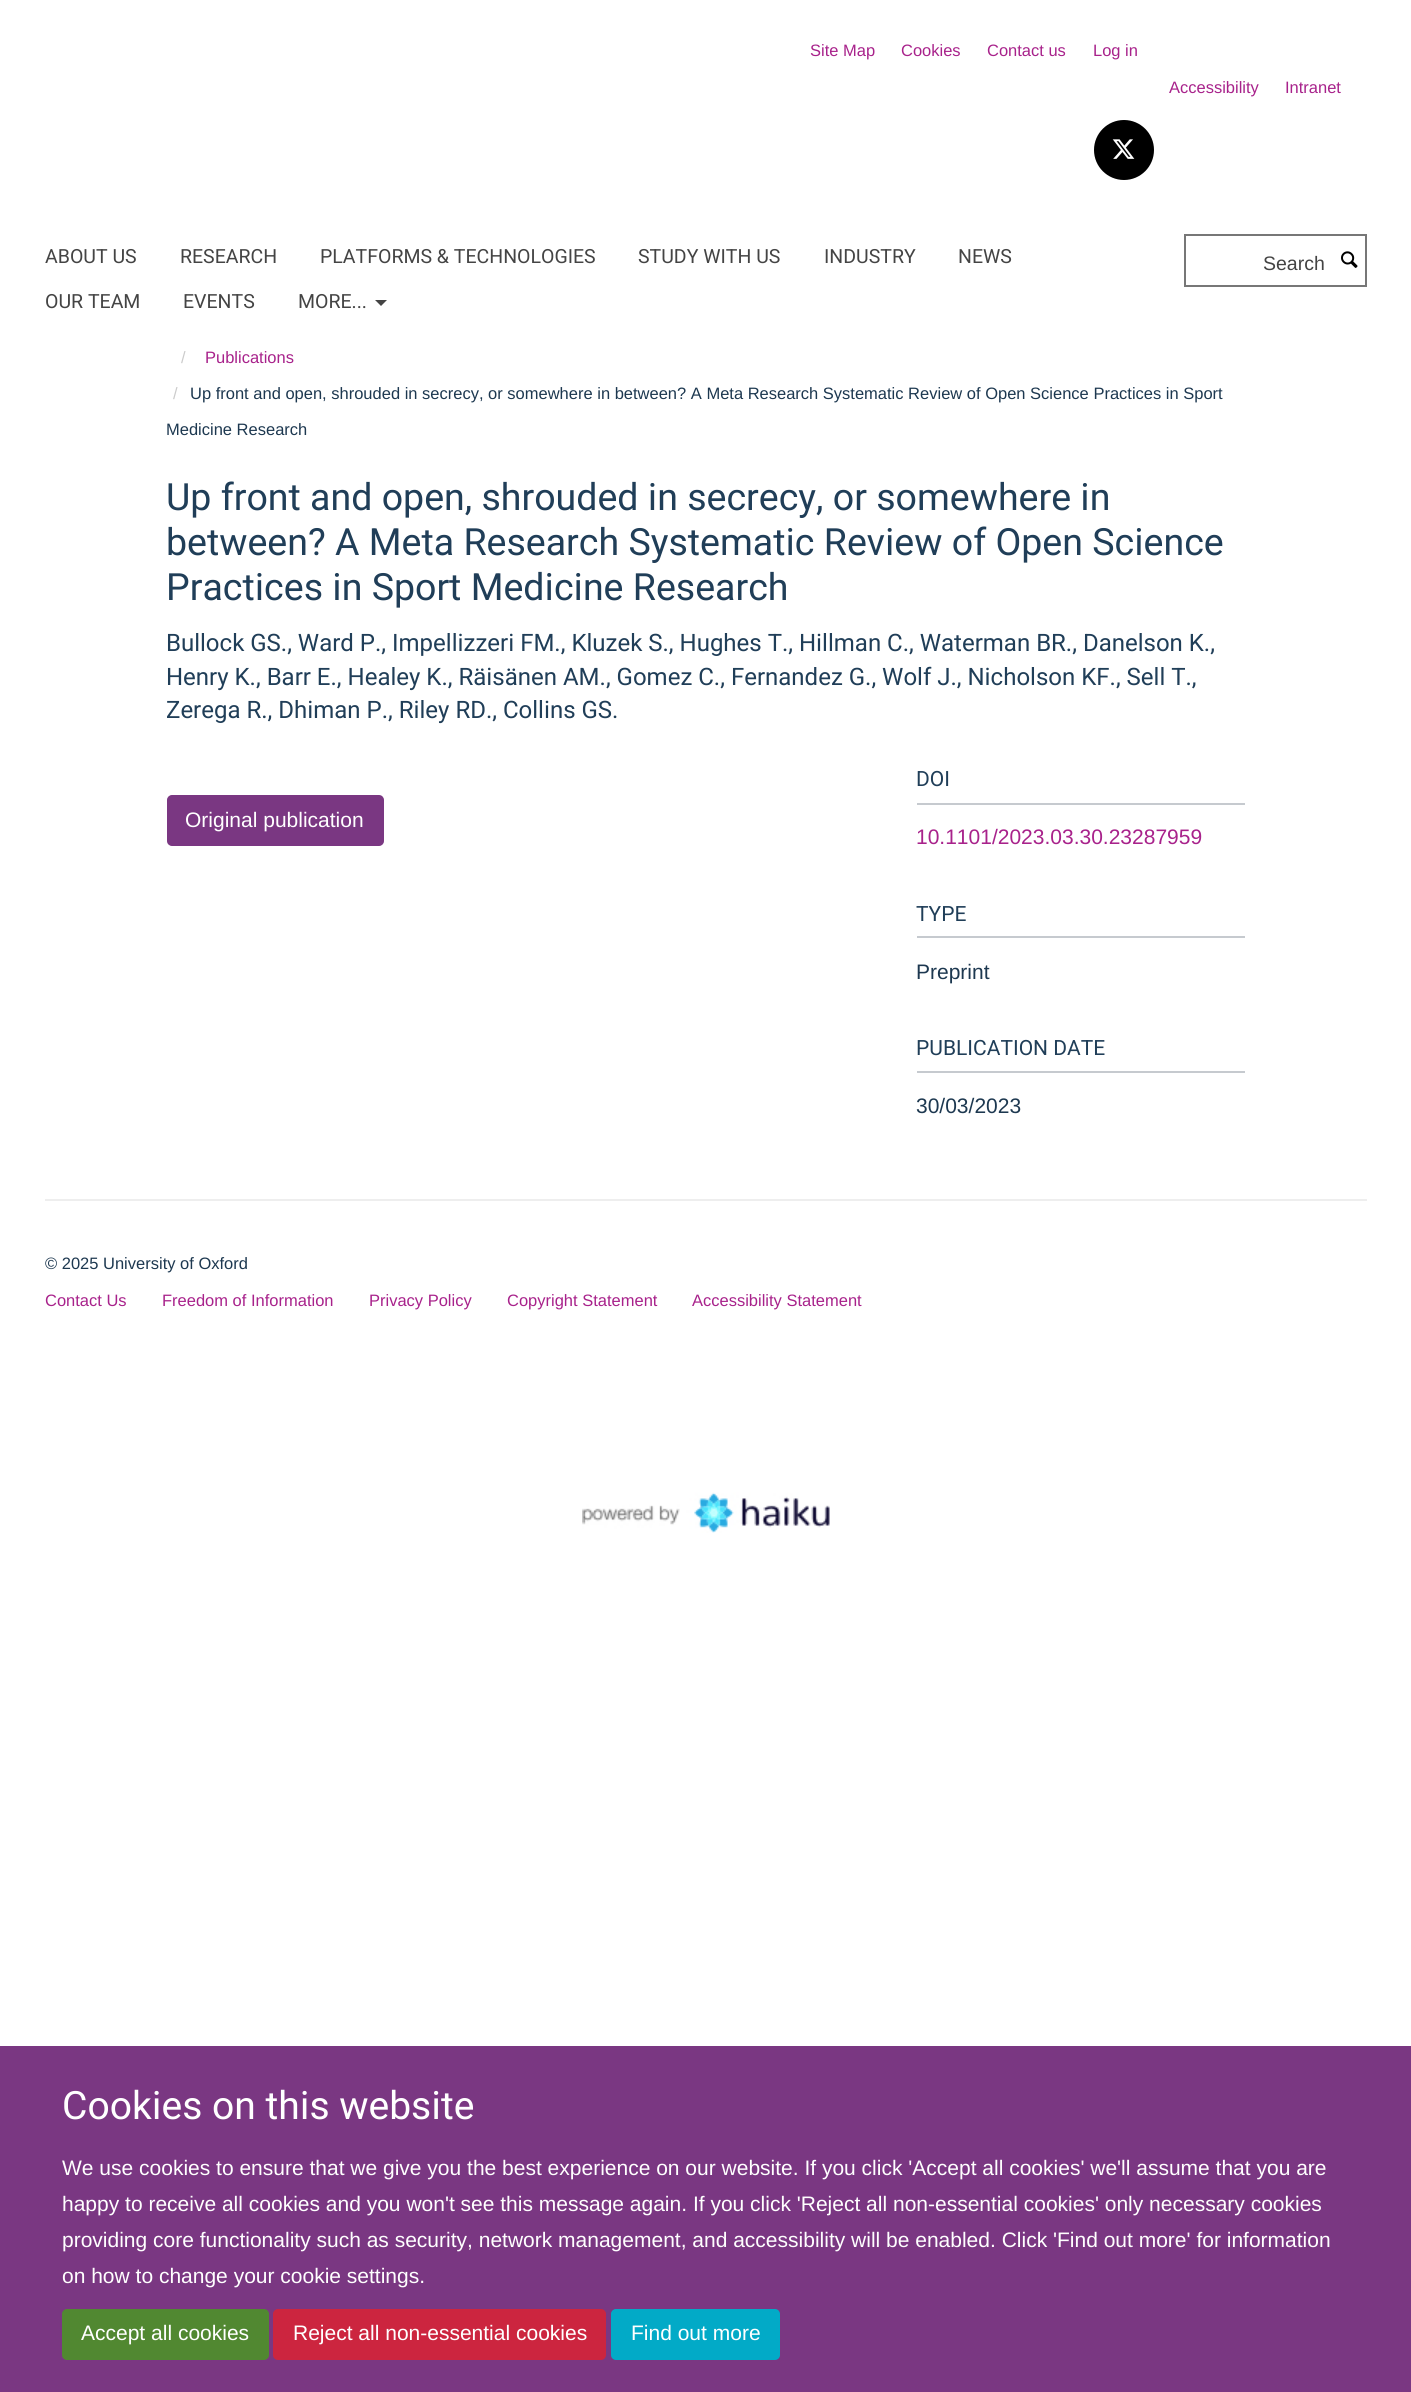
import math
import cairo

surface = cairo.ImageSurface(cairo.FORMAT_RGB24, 1411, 2392)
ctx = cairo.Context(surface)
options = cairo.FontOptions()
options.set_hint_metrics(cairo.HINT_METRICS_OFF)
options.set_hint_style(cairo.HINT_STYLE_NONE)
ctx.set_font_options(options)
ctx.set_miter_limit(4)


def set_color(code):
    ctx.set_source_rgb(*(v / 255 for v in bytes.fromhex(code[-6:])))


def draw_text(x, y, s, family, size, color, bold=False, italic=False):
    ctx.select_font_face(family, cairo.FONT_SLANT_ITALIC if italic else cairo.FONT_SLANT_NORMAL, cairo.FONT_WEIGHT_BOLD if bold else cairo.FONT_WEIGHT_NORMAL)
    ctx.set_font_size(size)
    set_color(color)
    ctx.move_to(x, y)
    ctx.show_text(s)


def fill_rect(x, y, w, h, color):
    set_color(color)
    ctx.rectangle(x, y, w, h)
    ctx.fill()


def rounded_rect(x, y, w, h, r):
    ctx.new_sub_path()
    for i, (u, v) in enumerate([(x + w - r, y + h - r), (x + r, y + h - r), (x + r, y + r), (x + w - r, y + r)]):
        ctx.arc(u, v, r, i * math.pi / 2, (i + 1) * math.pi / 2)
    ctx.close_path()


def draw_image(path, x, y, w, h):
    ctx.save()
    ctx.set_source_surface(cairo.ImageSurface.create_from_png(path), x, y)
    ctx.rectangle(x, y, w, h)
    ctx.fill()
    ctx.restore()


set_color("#ffffff")
ctx.paint()
draw_text(810, 56, "Site Map", "Liberation Sans", 16.5, "#a8228b")
draw_text(901, 56, "Cookies", "Liberation Sans", 16.5, "#a8228b")
draw_text(987, 56, "Contact us", "Liberation Sans", 16.5, "#a8228b")
draw_text(1093, 56, "Log in", "Liberation Sans", 16.5, "#a8228b")
draw_text(1169, 93, "Accessibility", "Liberation Sans", 16.5, "#a8228b")
draw_text(1285, 93, "Intranet", "Liberation Sans", 16.5, "#a8228b")
set_color("#000000")
ctx.new_path()
ctx.arc(1124, 150, 30, 0, 2 * math.pi)
ctx.fill()
draw_image("assets/img1.png", 1112, 139, 23, 20)
draw_text(45, 263, "ABOUT US", "Heebo", 19.5, "#444444")
draw_text(180, 263, "RESEARCH", "Heebo", 19.5, "#444444")
draw_text(320, 263, "PLATFORMS & TECHNOLOGIES", "Heebo", 19.5, "#444444")
draw_text(638, 263, "STUDY WITH US", "Heebo", 19.5, "#444444")
draw_text(824, 263, "INDUSTRY", "Heebo", 19.5, "#444444")
draw_text(958, 263, "NEWS", "Heebo", 19.5, "#444444")
draw_text(45, 308, "OUR TEAM", "Heebo", 19.5, "#444444")
draw_text(183, 308, "EVENTS", "Heebo", 19.5, "#444444")
draw_text(298, 308, "MORE...", "Heebo", 19.5, "#444444")
ctx.new_path()
ctx.move_to(375, 300)
ctx.line_to(387, 300)
ctx.line_to(381, 306)
ctx.close_path()
ctx.fill()
ctx.rectangle(1185, 235, 181, 51)
set_color("#777777")
ctx.stroke()
draw_text(1263, 270, "Search", "Liberation Sans", 19.5, "#444444")
draw_image("assets/img2.png", 1341, 251, 17, 17)
draw_text(181, 363, "/", "Liberation Sans", 16.5, "#cccccc")
draw_text(205, 363, "Publications", "Liberation Sans", 16.5, "#a8228b")
draw_text(173, 399, "/", "Liberation Sans", 16.5, "#cccccc")
draw_text(190, 399, "Up front and open, shrouded in secrecy, or somewhere in between? A Meta Research Systematic Review of Open Science Practices in Sport", "Liberation Sans", 16.5, "#1d3850")
draw_text(166, 435, "Medicine Research", "Liberation Sans", 16.5, "#1d3850")
draw_text(166, 510, "Up front and open, shrouded in secrecy, or somewhere in", "Heebo", 37.5, "#203e58")
draw_text(166, 555, "between? A Meta Research Systematic Review of Open Science", "Heebo", 37.5, "#203e58")
draw_text(166, 600, "Practices in Sport Medicine Research", "Heebo", 37.5, "#203e58")
draw_text(166, 651, "Bullock GS., Ward P., Impellizzeri FM., Kluzek S., Hughes T., Hillman C., Waterman BR., Danelson K.,", "Heebo", 24, "#203e58")
draw_text(166, 685, "Henry K., Barr E., Healey K., Räisänen AM., Gomez C., Fernandez G., Wolf J., Nicholson KF., Sell T.,", "Heebo", 24, "#203e58")
draw_text(166, 718, "Zerega R., Dhiman P., Riley RD., Collins GS.", "Heebo", 24, "#203e58")
set_color("#7a3782")
rounded_rect(168, 796, 215, 49, 4)
ctx.fill_preserve()
ctx.stroke()
draw_text(185, 827, "Original publication", "Liberation Sans", 21, "#ffffff")
fill_rect(917, 803, 328, 2, "#c6cacf")
draw_text(916, 786, "DOI", "Heebo", 21, "#203e58")
draw_text(916, 844, "10.1101/2023.03.30.23287959", "Liberation Sans", 21, "#a8228b")
fill_rect(917, 936, 328, 2, "#c6cacf")
draw_text(916, 921, "TYPE", "Heebo", 21, "#203e58")
draw_text(916, 979, "Preprint", "Liberation Sans", 21, "#1d3850")
fill_rect(917, 1071, 328, 2, "#c6cacf")
draw_text(916, 1055, "PUBLICATION DATE", "Heebo", 21, "#203e58")
draw_text(916, 1113, "30/03/2023", "Liberation Sans", 21, "#1d3850")
fill_rect(45, 1199, 1322, 2, "#eeeeee")
draw_text(45, 1269, "© 2025 University of Oxford", "Liberation Sans", 16.5, "#1d3850")
draw_text(45, 1306, "Contact Us", "Liberation Sans", 16.5, "#a8228b")
draw_text(162, 1306, "Freedom of Information", "Liberation Sans", 16.5, "#a8228b")
draw_text(369, 1306, "Privacy Policy", "Liberation Sans", 16.5, "#a8228b")
draw_text(507, 1306, "Copyright Statement", "Liberation Sans", 16.5, "#a8228b")
draw_text(692, 1306, "Accessibility Statement", "Liberation Sans", 16.5, "#a8228b")
draw_image("assets/img3.png", 582, 1492, 248, 41)
fill_rect(0, 2046, 1411, 346, "#7a3782")
draw_text(62, 2119, "Cookies on this website", "Heebo", 39, "#ffffff")
draw_text(62, 2175, "We use cookies to ensure that we give you the best experience on our website. If you click 'Accept all cookies' we'll assume that you are", "Liberation Sans", 21, "#ffffff")
draw_text(62, 2211, "happy to receive all cookies and you won't see this message again. If you click 'Reject all non-essential cookies' only necessary cookies", "Liberation Sans", 21, "#ffffff")
draw_text(62, 2247, "providing core functionality such as security, network management, and accessibility will be enabled. Click 'Find out more' for information", "Liberation Sans", 21, "#ffffff")
draw_text(62, 2283, "on how to change your cookie settings.", "Liberation Sans", 21, "#ffffff")
set_color("#518831")
rounded_rect(63, 2310, 205, 49, 4)
ctx.fill_preserve()
ctx.stroke()
draw_text(81, 2340, "Accept all cookies", "Liberation Sans", 21, "#ffffff")
set_color("#cc253f")
rounded_rect(274, 2310, 331, 49, 4)
ctx.fill_preserve()
ctx.stroke()
draw_text(293, 2340, "Reject all non-essential cookies", "Liberation Sans", 21, "#ffffff")
set_color("#02aac7")
rounded_rect(612, 2310, 167, 49, 4)
ctx.fill_preserve()
ctx.stroke()
draw_text(631, 2340, "Find out more", "Liberation Sans", 21, "#ffffff")
surface.write_to_png("output.png")
